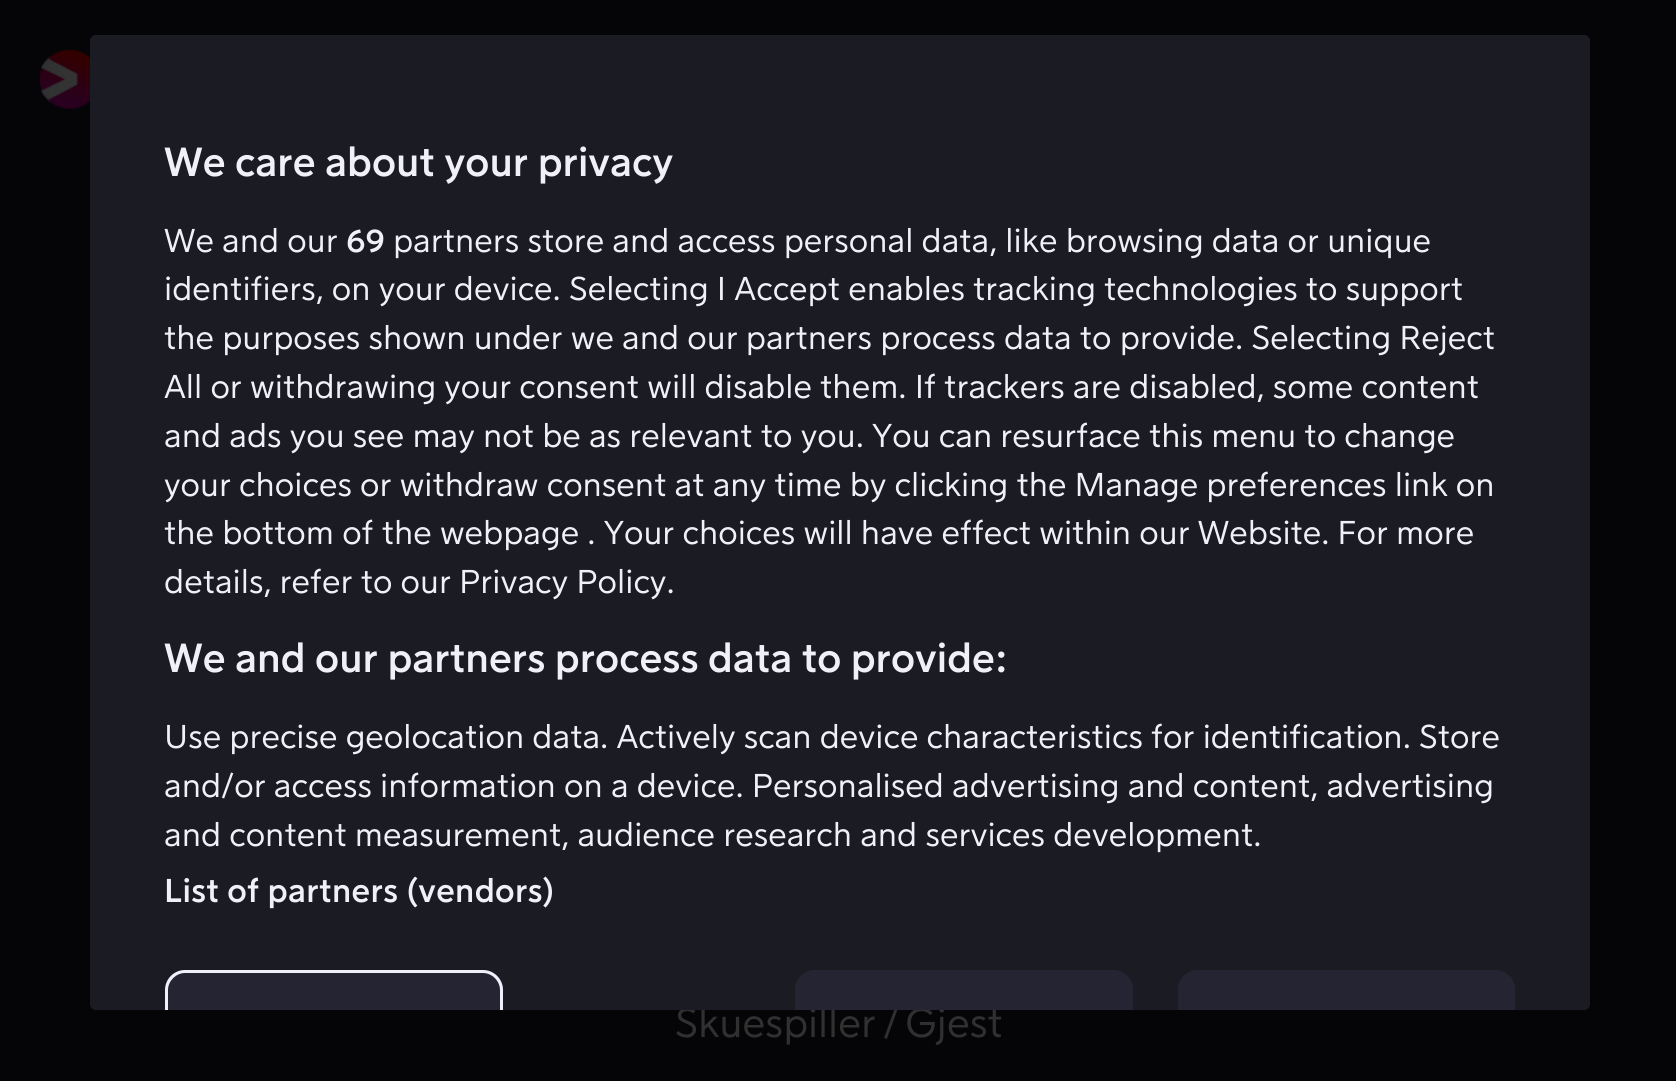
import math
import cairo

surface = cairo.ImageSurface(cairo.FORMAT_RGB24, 1676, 1081)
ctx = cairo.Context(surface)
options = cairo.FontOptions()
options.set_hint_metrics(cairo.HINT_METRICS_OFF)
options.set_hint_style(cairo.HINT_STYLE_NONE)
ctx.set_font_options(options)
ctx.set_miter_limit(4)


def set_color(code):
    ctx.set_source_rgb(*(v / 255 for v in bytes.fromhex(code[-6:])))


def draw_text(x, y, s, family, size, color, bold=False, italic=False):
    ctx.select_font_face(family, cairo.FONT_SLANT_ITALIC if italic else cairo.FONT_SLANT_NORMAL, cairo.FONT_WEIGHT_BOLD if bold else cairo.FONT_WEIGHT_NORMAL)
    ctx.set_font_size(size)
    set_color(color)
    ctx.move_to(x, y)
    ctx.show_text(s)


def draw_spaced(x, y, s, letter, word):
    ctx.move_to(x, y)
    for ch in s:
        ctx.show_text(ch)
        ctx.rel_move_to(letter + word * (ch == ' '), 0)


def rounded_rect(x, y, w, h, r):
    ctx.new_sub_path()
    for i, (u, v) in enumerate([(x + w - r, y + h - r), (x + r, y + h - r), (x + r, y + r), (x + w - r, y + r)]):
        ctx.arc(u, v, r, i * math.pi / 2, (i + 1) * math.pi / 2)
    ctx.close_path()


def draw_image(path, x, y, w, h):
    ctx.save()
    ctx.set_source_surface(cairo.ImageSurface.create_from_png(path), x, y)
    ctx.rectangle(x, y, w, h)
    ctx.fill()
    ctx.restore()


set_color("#050507")
ctx.paint()
draw_text(675, 1037, "Skuespiller", "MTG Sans", 40, "#303030")
draw_text(883, 1037, "/", "MTG Sans", 40, "#303030")
draw_text(905, 1037, "Gjest", "MTG Sans", 40, "#303030")
set_color("#1b1b24")
rounded_rect(90, 35, 1500, 975, 6)
ctx.fill()
draw_text(164, 176, "We care about your privacy", "MTG Sans", 40, "#f1f0fa", bold=True)
draw_text(164, 252, "We and our", "MTG Sans", 32.5, "#f1f0fa")
draw_text(346, 252, "69", "MTG Sans", 32.5, "#f1f0fa", bold=True)
draw_text(393, 252, "partners store and access personal data, like browsing data or unique", "MTG Sans", 32.5, "#f1f0fa")
draw_text(164, 300, "identifiers, on your device. Selecting I Accept enables tracking technologies to support", "MTG Sans", 32.5, "#f1f0fa")
draw_text(164, 349, "the purposes shown under we and our partners process data to provide. Selecting Reject", "MTG Sans", 32.5, "#f1f0fa")
draw_text(164, 398, "All or withdrawing your consent will disable them. If trackers are disabled, some content", "MTG Sans", 32.5, "#f1f0fa")
draw_text(164, 447, "and ads you see may not be as relevant to you. You can resurface this menu to change", "MTG Sans", 32.5, "#f1f0fa")
draw_text(164, 496, "your choices or withdraw consent at any time by clicking the Manage preferences link on", "MTG Sans", 32.5, "#f1f0fa")
draw_text(164, 544, "the bottom of the webpage . Your choices will have effect within our Website. For more", "MTG Sans", 32.5, "#f1f0fa")
draw_text(164, 593, "details, refer to our Privacy Policy.", "MTG Sans", 32.5, "#f1f0fa")
draw_text(164, 672, "We and our partners process data to provide:", "MTG Sans", 40, "#f1f0fa", bold=True)
draw_text(164, 748, "Use precise geolocation data. Actively scan device characteristics for identification. Store", "MTG Sans", 32.5, "#f1f0fa")
draw_text(164, 797, "and/or access information on a device. Personalised advertising and content, advertising", "MTG Sans", 32.5, "#f1f0fa")
draw_text(164, 846, "and content measurement, audience research and services development.", "MTG Sans", 32.5, "#f1f0fa")
ctx.select_font_face("MTG Sans", cairo.FONT_SLANT_NORMAL, cairo.FONT_WEIGHT_BOLD)
draw_spaced(164, 902, "List of partners (vendors)", 0.3, 0)
set_color("#252433")
ctx.new_path()
ctx.move_to(185, 970)
ctx.line_to(483, 970)
ctx.curve_to(494, 970, 503, 979, 503, 990)
ctx.line_to(503, 1010)
ctx.line_to(165, 1010)
ctx.line_to(165, 990)
ctx.curve_to(165, 979, 174, 970, 185, 970)
ctx.close_path()
ctx.fill()
set_color("#f1f0fa")
ctx.new_path()
ctx.move_to(185, 970)
ctx.curve_to(174, 970, 165, 979, 165, 990)
ctx.line_to(165, 1010)
ctx.line_to(168, 1010)
ctx.line_to(168, 990)
ctx.curve_to(168, 981, 176, 973, 185, 973)
ctx.line_to(483, 973)
ctx.curve_to(492, 973, 500, 981, 500, 990)
ctx.line_to(500, 1010)
ctx.line_to(503, 1010)
ctx.line_to(503, 990)
ctx.curve_to(503, 979, 494, 970, 483, 970)
ctx.close_path()
ctx.fill()
set_color("#252433")
ctx.new_path()
ctx.move_to(815, 970)
ctx.line_to(1113, 970)
ctx.curve_to(1124, 970, 1133, 979, 1133, 990)
ctx.line_to(1133, 1010)
ctx.line_to(795, 1010)
ctx.line_to(795, 990)
ctx.curve_to(795, 979, 804, 970, 815, 970)
ctx.close_path()
ctx.fill()
ctx.new_path()
ctx.move_to(815, 970)
ctx.curve_to(804, 970, 795, 979, 795, 990)
ctx.line_to(795, 1010)
ctx.line_to(798, 1010)
ctx.line_to(798, 990)
ctx.curve_to(798, 981, 806, 973, 815, 973)
ctx.line_to(1113, 973)
ctx.curve_to(1122, 973, 1130, 981, 1130, 990)
ctx.line_to(1130, 1010)
ctx.line_to(1133, 1010)
ctx.line_to(1133, 990)
ctx.curve_to(1133, 979, 1124, 970, 1113, 970)
ctx.close_path()
ctx.fill()
ctx.new_path()
ctx.move_to(1198, 970)
ctx.line_to(1495, 970)
ctx.curve_to(1506, 970, 1515, 979, 1515, 990)
ctx.line_to(1515, 1010)
ctx.line_to(1178, 1010)
ctx.line_to(1178, 990)
ctx.curve_to(1178, 979, 1187, 970, 1198, 970)
ctx.close_path()
ctx.fill()
ctx.new_path()
ctx.move_to(1198, 970)
ctx.curve_to(1187, 970, 1178, 979, 1178, 990)
ctx.line_to(1178, 1010)
ctx.line_to(1181, 1010)
ctx.line_to(1181, 990)
ctx.curve_to(1181, 981, 1189, 973, 1198, 973)
ctx.line_to(1495, 973)
ctx.curve_to(1504, 973, 1512, 981, 1512, 990)
ctx.line_to(1512, 1010)
ctx.line_to(1515, 1010)
ctx.line_to(1515, 990)
ctx.curve_to(1515, 979, 1506, 970, 1495, 970)
ctx.close_path()
ctx.fill()
draw_image("assets/img1.png", 40, 49, 50, 60)
surface.write_to_png("output.png")
